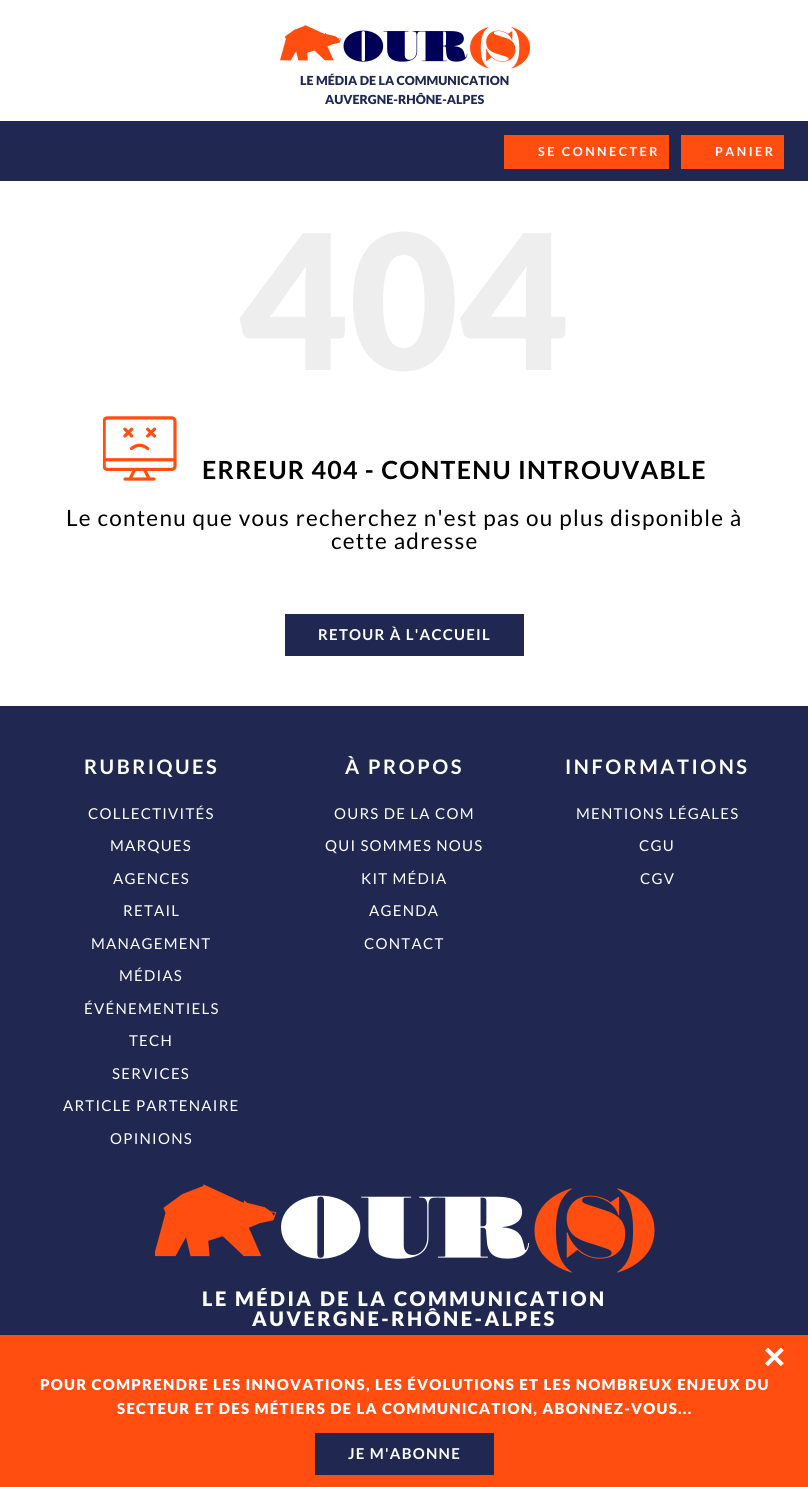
import math
import cairo

surface = cairo.ImageSurface(cairo.FORMAT_RGB24, 808, 1487)
ctx = cairo.Context(surface)
options = cairo.FontOptions()
options.set_hint_metrics(cairo.HINT_METRICS_OFF)
options.set_hint_style(cairo.HINT_STYLE_NONE)
ctx.set_font_options(options)
ctx.set_miter_limit(4)


def set_color(code):
    ctx.set_source_rgb(*(v / 255 for v in bytes.fromhex(code[-6:])))


def draw_text(x, y, s, family, size, color, bold=False, italic=False):
    ctx.select_font_face(family, cairo.FONT_SLANT_ITALIC if italic else cairo.FONT_SLANT_NORMAL, cairo.FONT_WEIGHT_BOLD if bold else cairo.FONT_WEIGHT_NORMAL)
    ctx.set_font_size(size)
    set_color(color)
    ctx.move_to(x, y)
    ctx.show_text(s)


def draw_spaced(x, y, s, letter, word):
    ctx.move_to(x, y)
    for ch in s:
        ctx.show_text(ch)
        ctx.rel_move_to(letter + word * (ch == ' '), 0)


def fill_rect(x, y, w, h, color):
    set_color(color)
    ctx.rectangle(x, y, w, h)
    ctx.fill()


def draw_image(path, x, y, w, h):
    ctx.save()
    ctx.set_source_surface(cairo.ImageSurface.create_from_png(path), x, y)
    ctx.rectangle(x, y, w, h)
    ctx.fill()
    ctx.restore()


set_color("#ffffff")
ctx.paint()
draw_image("assets/img1.png", 280, 25, 250, 44)
draw_text(300, 85, "LE MÉDIA DE LA COMMUNICATION", "Lato Black", 12.5, "#202852")
draw_text(325, 104, "AUVERGNE-RHÔNE-ALPES", "Lato Black", 12.5, "#202852")
fill_rect(0, 121, 808, 60, "#202852")
fill_rect(504, 135, 165, 34, "#ff4e0f")
ctx.select_font_face("Lato", cairo.FONT_SLANT_NORMAL, cairo.FONT_WEIGHT_BOLD)
set_color("#ffffff")
draw_spaced(538, 156, "SE CONNECTER", 2.5, 0)
fill_rect(681, 135, 103, 34, "#ff4e0f")
set_color("#ffffff")
draw_spaced(715, 156, "PANIER", 2.5, 0)
ctx.select_font_face("Lato Black")
ctx.set_font_size(188)
set_color("#efeeee")
draw_spaced(239, 370, "404", 1.25, 0)
draw_image("assets/img2.png", 103, 416, 74, 65)
ctx.select_font_face("Lato", cairo.FONT_SLANT_NORMAL, cairo.FONT_WEIGHT_BOLD)
ctx.set_font_size(25)
set_color("#000000")
draw_spaced(202, 479, "ERREUR 404 - CONTENU INTROUVABLE", 1.25, 0)
ctx.select_font_face("Lato")
ctx.set_font_size(22.5)
draw_spaced(66, 526, "Le contenu que vous recherchez n'est pas ou plus disponible à", 1.25, 0)
draw_spaced(331, 549, "cette adresse", 1.25, 0)
fill_rect(285, 614, 239, 42, "#202852")
ctx.select_font_face("Lato", cairo.FONT_SLANT_NORMAL, cairo.FONT_WEIGHT_BOLD)
ctx.set_font_size(15)
set_color("#ffffff")
draw_spaced(318, 640, "RETOUR À L'ACCUEIL", 1.25, 0)
fill_rect(0, 706, 808, 629, "#202852")
ctx.set_font_size(20)
set_color("#ffffff")
draw_spaced(84, 774, "RUBRIQUES", 2.5, 0)
ctx.select_font_face("Lato")
ctx.set_font_size(15)
draw_spaced(88, 819, "COLLECTIVITÉS", 1.25, 0)
draw_spaced(110, 851, "MARQUES", 1.25, 0)
draw_spaced(113, 884, "AGENCES", 1.25, 0)
draw_spaced(123, 916, "RETAIL", 1.25, 0)
draw_spaced(91, 949, "MANAGEMENT", 1.25, 0)
draw_spaced(119, 981, "MÉDIAS", 1.25, 0)
draw_spaced(84, 1014, "ÉVÉNEMENTIELS", 1.25, 0)
draw_spaced(129, 1046, "TECH", 1.25, 0)
draw_spaced(112, 1079, "SERVICES", 1.25, 0)
draw_spaced(63, 1111, "ARTICLE PARTENAIRE", 1.25, 0)
draw_spaced(110, 1144, "OPINIONS", 1.25, 0)
ctx.select_font_face("Lato", cairo.FONT_SLANT_NORMAL, cairo.FONT_WEIGHT_BOLD)
ctx.set_font_size(20)
draw_spaced(345, 774, "À PROPOS", 2.5, 0)
ctx.select_font_face("Lato")
ctx.set_font_size(15)
draw_spaced(334, 819, "OURS DE LA COM", 1.25, 0)
draw_spaced(325, 851, "QUI SOMMES NOUS", 1.25, 0)
draw_spaced(361, 884, "KIT MÉDIA", 1.25, 0)
draw_spaced(369, 916, "AGENDA", 1.25, 0)
draw_spaced(364, 949, "CONTACT", 1.25, 0)
ctx.select_font_face("Lato", cairo.FONT_SLANT_NORMAL, cairo.FONT_WEIGHT_BOLD)
ctx.set_font_size(20)
draw_spaced(565, 774, "INFORMATIONS", 2.5, 0)
ctx.select_font_face("Lato")
ctx.set_font_size(15)
draw_spaced(576, 819, "MENTIONS LÉGALES", 1.25, 0)
draw_spaced(639, 851, "CGU", 1.25, 0)
draw_spaced(640, 884, "CGV", 1.25, 0)
draw_image("assets/img3.png", 155, 1184, 500, 89)
ctx.select_font_face("Lato Black")
ctx.set_font_size(20)
draw_spaced(202, 1306, "LE MÉDIA DE LA COMMUNICATION", 2.5, 0)
draw_spaced(252, 1326, "AUVERGNE-RHÔNE-ALPES", 2.5, 0)
fill_rect(0, 1335, 808, 152, "#ff4e0f")
ctx.set_font_size(15)
set_color("#ffffff")
draw_spaced(40, 1390, "POUR COMPRENDRE LES INNOVATIONS, LES ÉVOLUTIONS ET LES NOMBREUX ENJEUX DU", 1.25, 0)
draw_spaced(117, 1414, "SECTEUR ET DES MÉTIERS DE LA COMMUNICATION, ABONNEZ-VOUS...", 1.25, 0)
draw_image("assets/img4.png", 765, 1348, 19, 18)
fill_rect(315, 1433, 179, 42, "#202852")
ctx.select_font_face("Lato", cairo.FONT_SLANT_NORMAL, cairo.FONT_WEIGHT_BOLD)
set_color("#ffffff")
draw_spaced(348, 1459, "JE M'ABONNE", 1.25, 0)
surface.write_to_png("output.png")
